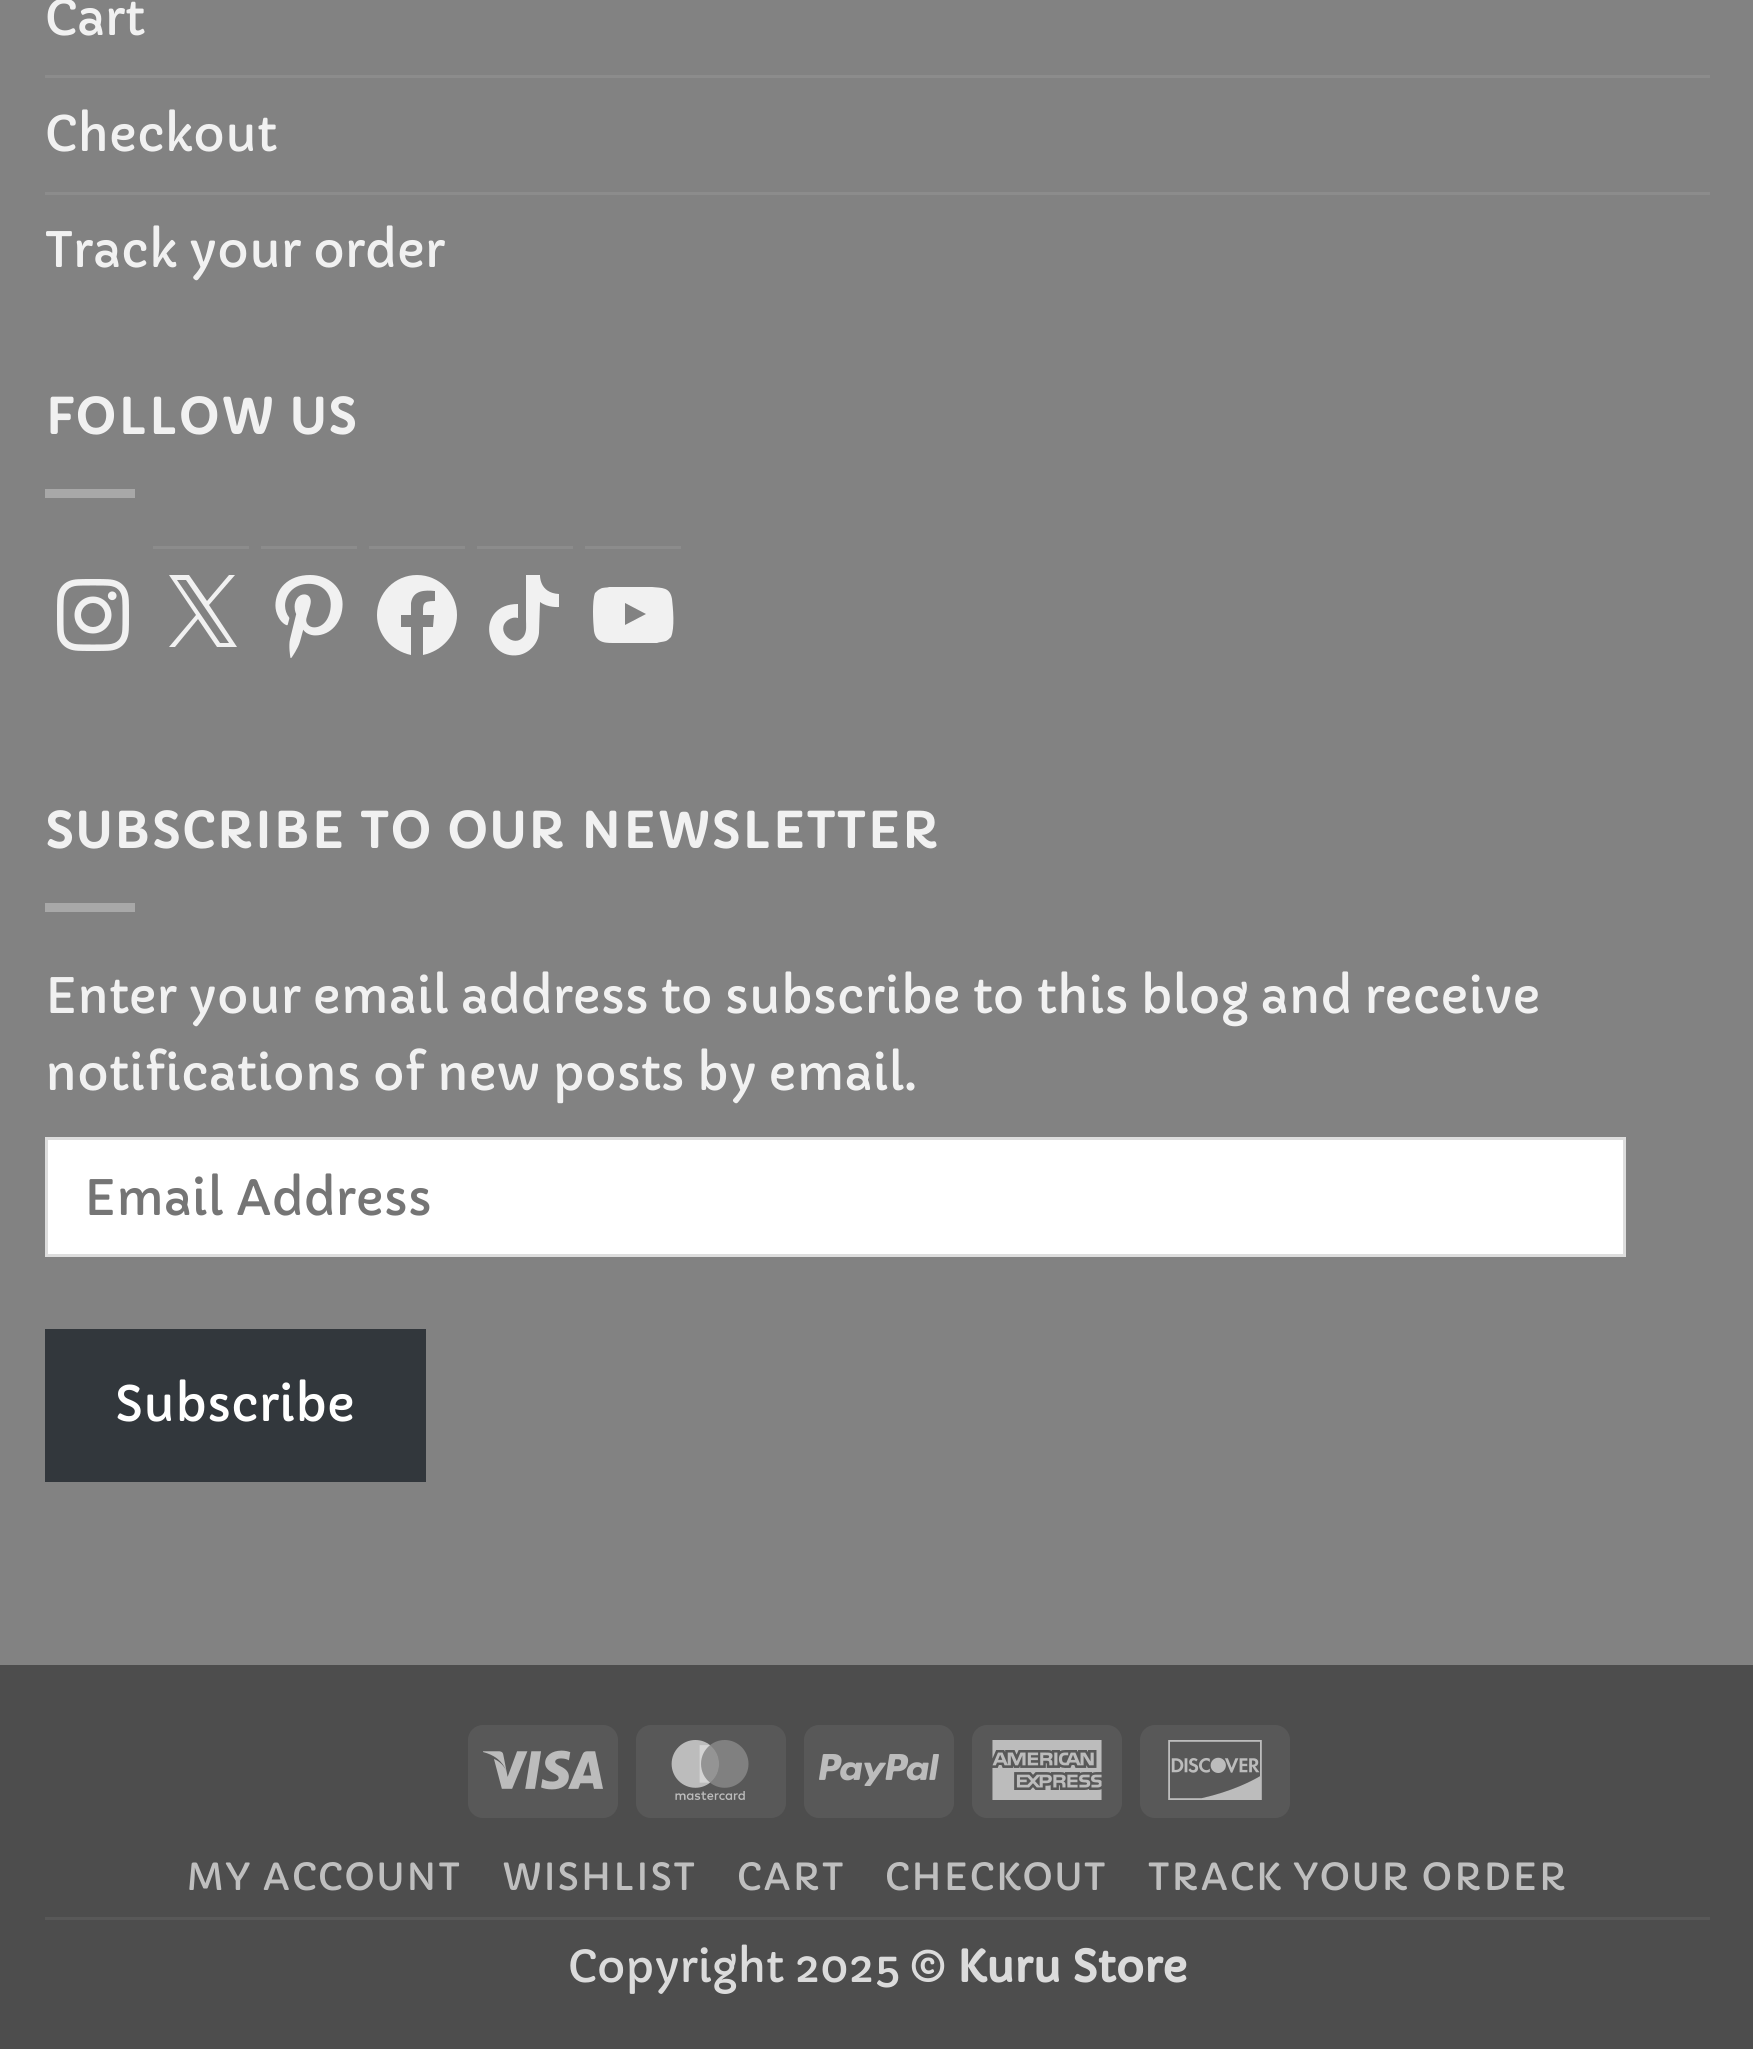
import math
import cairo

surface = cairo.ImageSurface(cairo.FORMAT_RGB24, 1753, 2049)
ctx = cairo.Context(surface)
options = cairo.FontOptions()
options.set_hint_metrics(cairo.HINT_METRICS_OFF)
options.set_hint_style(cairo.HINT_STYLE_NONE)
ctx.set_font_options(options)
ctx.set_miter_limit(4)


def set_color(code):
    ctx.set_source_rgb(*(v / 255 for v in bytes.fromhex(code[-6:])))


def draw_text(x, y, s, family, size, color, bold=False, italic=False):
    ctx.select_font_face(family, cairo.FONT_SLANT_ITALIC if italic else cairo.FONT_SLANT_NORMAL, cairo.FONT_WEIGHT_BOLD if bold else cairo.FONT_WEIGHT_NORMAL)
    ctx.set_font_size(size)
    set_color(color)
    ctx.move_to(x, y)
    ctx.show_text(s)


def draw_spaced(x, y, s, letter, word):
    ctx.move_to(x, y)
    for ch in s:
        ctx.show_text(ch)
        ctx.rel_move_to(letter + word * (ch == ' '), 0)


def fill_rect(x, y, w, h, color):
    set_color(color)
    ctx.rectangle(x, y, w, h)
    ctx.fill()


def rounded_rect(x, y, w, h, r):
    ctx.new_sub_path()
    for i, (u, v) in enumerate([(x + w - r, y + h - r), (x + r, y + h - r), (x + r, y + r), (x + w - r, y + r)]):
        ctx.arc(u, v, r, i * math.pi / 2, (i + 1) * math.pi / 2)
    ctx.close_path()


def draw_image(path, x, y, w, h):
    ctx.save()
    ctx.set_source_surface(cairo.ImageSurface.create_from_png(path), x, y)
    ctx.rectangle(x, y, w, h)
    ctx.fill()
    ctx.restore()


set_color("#828282")
ctx.paint()
draw_text(45, 35, "Cart", "Capriola", 48, "#f1f1f1")
fill_rect(45, 75, 1665, 3, "#8c8c8c")
draw_text(45, 151, "Checkout", "Capriola", 48, "#f1f1f1")
fill_rect(45, 192, 1665, 3, "#8c8c8c")
draw_text(45, 267, "Track your order", "Capriola", 48, "#f1f1f1")
ctx.select_font_face("Capriola", cairo.FONT_SLANT_NORMAL, cairo.FONT_WEIGHT_BOLD)
draw_spaced(45, 434, "FOLLOW US", 2.4, 0)
fill_rect(45, 489, 90, 9, "#a8a8a8")
draw_image("assets/img1.png", 57, 579, 72, 72)
fill_rect(153, 546, 96, 3, "#8c8c8c")
set_color("#f1f1f1")
ctx.new_path()
ctx.move_to(209, 605)
ctx.line_to(235, 575)
ctx.line_to(229, 575)
ctx.line_to(207, 601)
ctx.line_to(189, 575)
ctx.line_to(169, 575)
ctx.line_to(196, 615)
ctx.line_to(169, 647)
ctx.line_to(175, 647)
ctx.line_to(198, 619)
ctx.line_to(217, 647)
ctx.line_to(237, 647)
ctx.close_path()
ctx.move_to(201, 615)
ctx.line_to(177, 580)
ctx.line_to(186, 580)
ctx.line_to(229, 643)
ctx.line_to(220, 643)
ctx.close_path()
ctx.fill()
fill_rect(261, 546, 96, 3, "#8c8c8c")
draw_image("assets/img2.png", 275, 575, 68, 83)
fill_rect(369, 546, 96, 3, "#8c8c8c")
set_color("#f1f1f1")
ctx.new_path()
ctx.move_to(417, 575)
ctx.curve_to(395, 575, 377, 593, 377, 615)
ctx.curve_to(377, 635, 392, 651, 411, 655)
ctx.line_to(411, 627)
ctx.line_to(401, 627)
ctx.line_to(401, 615)
ctx.line_to(411, 615)
ctx.line_to(411, 603)
ctx.curve_to(413, 590, 425, 590, 435, 591)
ctx.line_to(435, 601)
ctx.curve_to(422, 601, 423, 604, 423, 615)
ctx.line_to(434, 615)
ctx.line_to(433, 627)
ctx.line_to(423, 627)
ctx.line_to(423, 655)
ctx.curve_to(442, 651, 457, 635, 457, 615)
ctx.curve_to(457, 593, 439, 575, 417, 575)
ctx.close_path()
ctx.fill()
fill_rect(477, 546, 96, 3, "#8c8c8c")
set_color("#f1f1f1")
ctx.new_path()
ctx.move_to(526, 575)
ctx.line_to(540, 575)
ctx.curve_to(540, 575, 539, 593, 559, 594)
ctx.line_to(559, 607)
ctx.curve_to(559, 607, 548, 608, 540, 602)
ctx.line_to(539, 633)
ctx.curve_to(538, 644, 529, 653, 519, 655)
ctx.curve_to(484, 661, 475, 604, 518, 604)
ctx.line_to(518, 618)
ctx.curve_to(514, 617, 511, 618, 508, 620)
ctx.curve_to(494, 630, 514, 650, 524, 636)
ctx.curve_to(527, 631, 526, 625, 526, 620)
ctx.close_path()
ctx.fill()
fill_rect(585, 546, 96, 3, "#8c8c8c")
set_color("#f1f1f1")
ctx.new_path()
ctx.move_to(672, 599)
ctx.curve_to(670, 587, 662, 588, 652, 587)
ctx.line_to(627, 587)
ctx.line_to(609, 587)
ctx.curve_to(607, 588, 603, 587, 600, 589)
ctx.curve_to(598, 590, 597, 591, 595, 593)
ctx.curve_to(592, 601, 593, 622, 594, 631)
ctx.curve_to(596, 644, 607, 643, 617, 643)
ctx.line_to(639, 643)
ctx.line_to(657, 643)
ctx.curve_to(659, 642, 663, 642, 666, 641)
ctx.curve_to(668, 640, 669, 639, 671, 637)
ctx.curve_to(675, 628, 673, 608, 672, 599)
ctx.close_path()
ctx.move_to(625, 625)
ctx.line_to(625, 603)
ctx.line_to(646, 614)
ctx.close_path()
ctx.fill()
draw_spaced(45, 848, "SUBSCRIBE TO OUR NEWSLETTER", 2.4, 0)
fill_rect(45, 903, 90, 9, "#a8a8a8")
draw_text(45, 1013, "Enter your email address to subscribe to this blog and receive", "Capriola", 48, "#f1f1f1")
draw_text(45, 1090, "notifications of new posts by email.", "Capriola", 48, "#f1f1f1")
set_color("#ffffff")
ctx.rectangle(46.5, 1138.5, 1578, 117)
ctx.fill_preserve()
set_color("#dddddd")
ctx.set_line_width(3)
ctx.stroke()
draw_text(84, 1215, "Email Address", "Capriola", 48, "#757575")
fill_rect(45, 1329, 381, 153, "#32373c")
draw_text(115, 1421, "Subscribe", "Capriola", 48, "#ffffff")
fill_rect(0, 1665, 1753, 384, "#4d4d4d")
set_color("#585858")
rounded_rect(468, 1725, 150, 93, 15)
ctx.fill()
draw_image("assets/img3.png", 483, 1750, 120, 40)
rounded_rect(636, 1725, 150, 93, 15)
ctx.fill()
draw_image("assets/img4.png", 671, 1740, 78, 60)
rounded_rect(804, 1725, 150, 93, 15)
ctx.fill()
draw_image("assets/img5.png", 819, 1754, 120, 32)
rounded_rect(972, 1725, 150, 93, 15)
ctx.fill()
draw_image("assets/img6.png", 992, 1740, 110, 60)
rounded_rect(1140, 1725, 150, 93, 15)
ctx.fill()
draw_image("assets/img7.png", 1168, 1740, 94, 60)
fill_rect(45, 1917, 1665, 3, "#585858")
ctx.set_font_size(36.75)
set_color("#bfbfbf")
draw_spaced(187, 1890, "MY ACCOUNT", 1.8, 0)
draw_spaced(502, 1890, "WISHLIST", 1.8, 0)
draw_spaced(737, 1890, "CART", 1.8, 0)
draw_spaced(885, 1890, "CHECKOUT", 1.8, 0)
draw_spaced(1148, 1890, "TRACK YOUR ORDER", 1.8, 0)
draw_text(568, 1982, "Copyright 2025 ©", "Capriola", 43.25, "#dbdbdb")
draw_text(957, 1982, "Kuru Store", "Capriola", 43.25, "#dbdbdb", bold=True)
surface.write_to_png("output.png")
